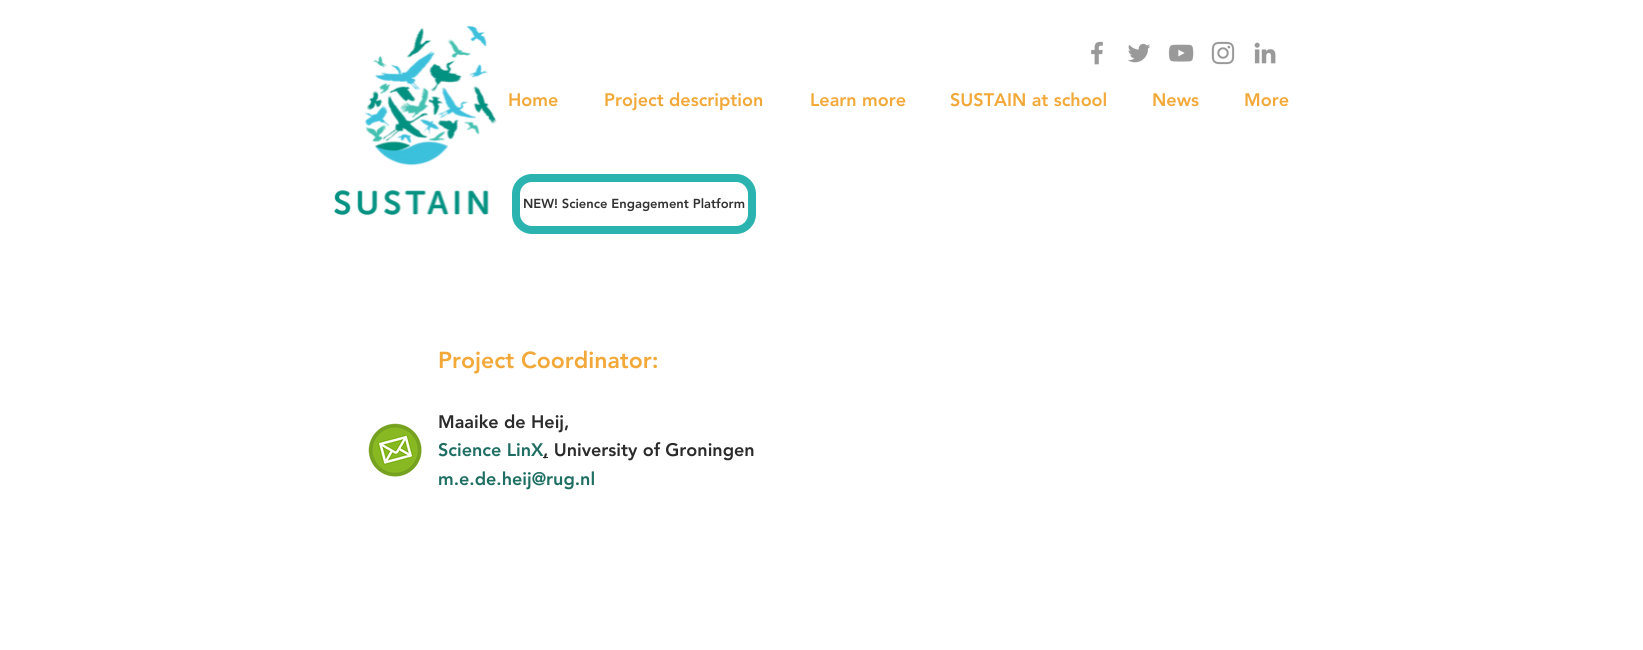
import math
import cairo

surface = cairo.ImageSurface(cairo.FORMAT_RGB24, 1643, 650)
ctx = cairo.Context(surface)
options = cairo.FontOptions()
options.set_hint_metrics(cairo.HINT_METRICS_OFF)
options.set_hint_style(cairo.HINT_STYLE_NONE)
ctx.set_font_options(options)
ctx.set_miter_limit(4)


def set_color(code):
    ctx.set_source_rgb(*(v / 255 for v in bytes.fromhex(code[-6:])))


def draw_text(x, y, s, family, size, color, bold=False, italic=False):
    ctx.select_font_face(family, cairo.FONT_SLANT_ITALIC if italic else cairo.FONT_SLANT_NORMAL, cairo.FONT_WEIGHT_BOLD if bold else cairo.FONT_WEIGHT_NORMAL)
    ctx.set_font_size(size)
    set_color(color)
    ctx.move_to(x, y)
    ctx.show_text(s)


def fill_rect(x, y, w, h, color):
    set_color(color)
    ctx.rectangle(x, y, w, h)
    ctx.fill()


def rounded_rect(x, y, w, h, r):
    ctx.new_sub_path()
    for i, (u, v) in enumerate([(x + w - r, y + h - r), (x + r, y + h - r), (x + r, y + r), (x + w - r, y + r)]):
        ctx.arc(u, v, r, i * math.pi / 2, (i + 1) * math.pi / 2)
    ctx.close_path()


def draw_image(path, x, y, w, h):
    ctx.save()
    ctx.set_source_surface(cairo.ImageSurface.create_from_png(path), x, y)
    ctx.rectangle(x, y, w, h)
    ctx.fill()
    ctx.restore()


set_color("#ffffff")
ctx.paint()
draw_text(508, 106, "Home", "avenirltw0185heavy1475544 Black", 18, "#f2a93a")
draw_text(604, 106, "Project description", "avenirltw0185heavy1475544 Black", 18, "#f2a93a")
draw_text(810, 106, "Learn more", "avenirltw0185heavy1475544 Black", 18, "#f2a93a")
draw_text(950, 106, "SUSTAIN at school", "avenirltw0185heavy1475544 Black", 18, "#f2a93a")
draw_text(1152, 106, "News", "avenirltw0185heavy1475544 Black", 18, "#f2a93a")
draw_text(1244, 106, "More", "avenirltw0185heavy1475544 Black", 18, "#f2a93a")
draw_image("assets/img1.png", 334, 26, 163, 190)
draw_image("assets/img2.png", 1091, 41, 12, 24)
draw_image("assets/img3.png", 1128, 43, 23, 20)
draw_image("assets/img4.png", 1168, 44, 26, 18)
draw_image("assets/img5.png", 1211, 41, 24, 24)
draw_image("assets/img6.png", 1254, 42, 22, 22)
rounded_rect(516, 178, 236, 52, 16)
set_color("#2bb3b0")
ctx.set_line_width(8)
ctx.stroke()
draw_text(523, 208, "NEW! Science Engagement Platform", "avenirltw0185heavy1475544 Black", 13, "#323232")
draw_image("assets/img7.png", 368, 423, 54, 54)
draw_text(438, 368, "Project Coordinator:", "avenirltw0185heavy1475544 Black", 23, "#f2a93a")
draw_text(438, 428, "Maaike de Heij,", "avenirltw0185heavy1475544 Black", 18, "#2b2b2b")
draw_text(438, 456, "Science LinX", "avenirltw0185heavy1475544 Black", 18, "#1e6e63")
fill_rect(543, 457, 5, 1, "#2b2b2b")
draw_text(543, 456, ", University of Groningen", "avenirltw0185heavy1475544 Black", 18, "#2b2b2b")
draw_text(438, 485, "m.e.de.heij@rug.nl", "avenirltw0185heavy1475544 Black", 18, "#1e6e63")
surface.write_to_png("output.png")
